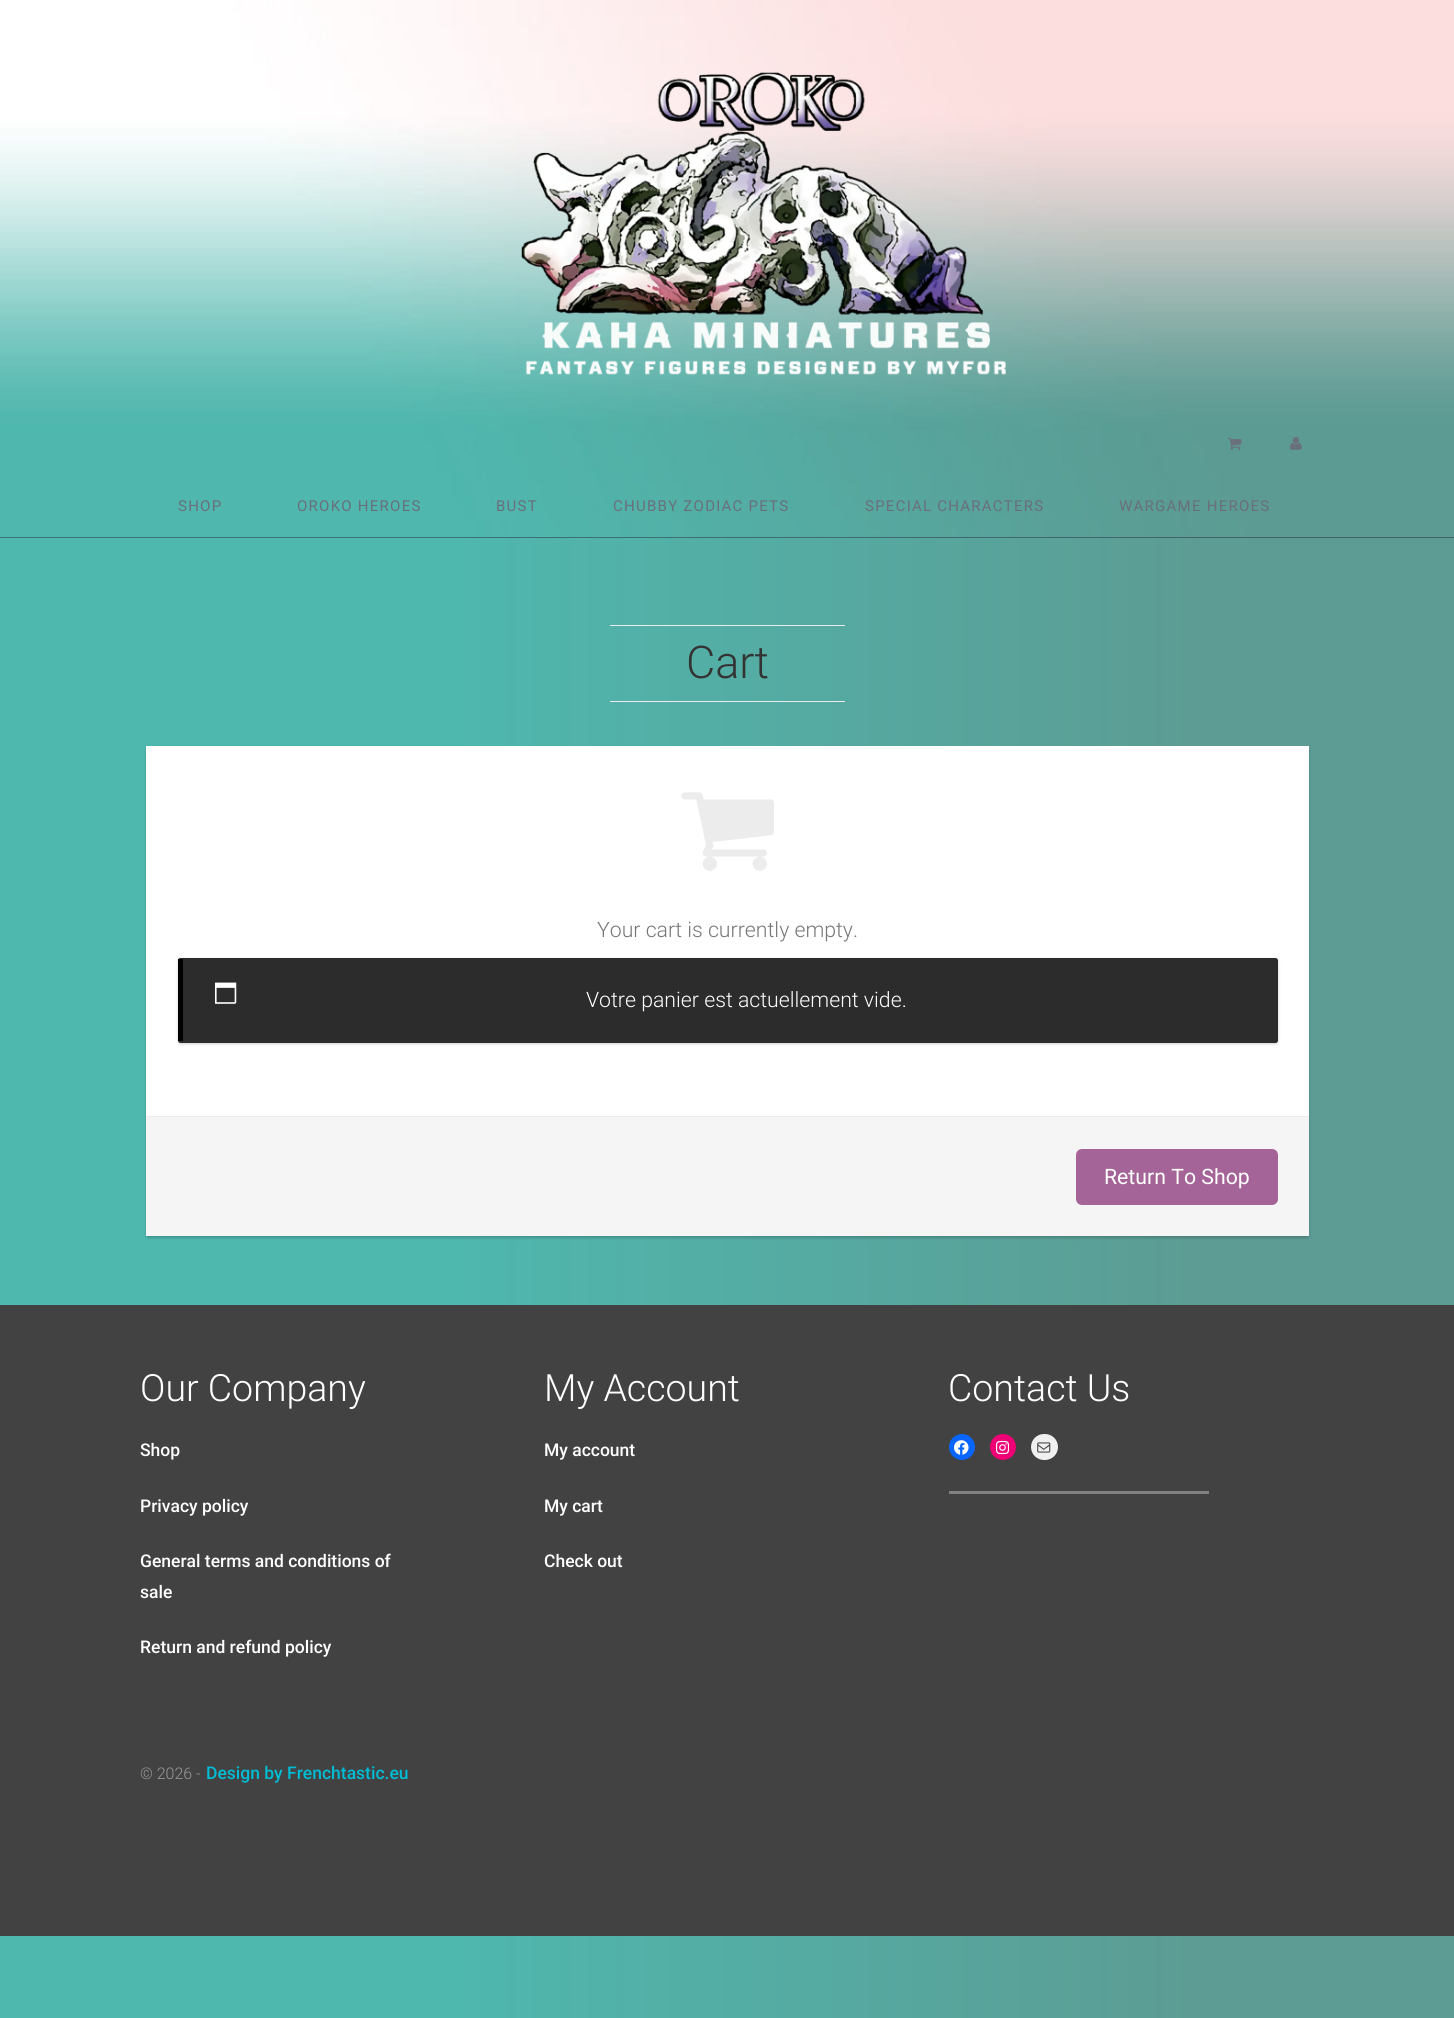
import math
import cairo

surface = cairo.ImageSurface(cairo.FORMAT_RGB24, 1454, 2018)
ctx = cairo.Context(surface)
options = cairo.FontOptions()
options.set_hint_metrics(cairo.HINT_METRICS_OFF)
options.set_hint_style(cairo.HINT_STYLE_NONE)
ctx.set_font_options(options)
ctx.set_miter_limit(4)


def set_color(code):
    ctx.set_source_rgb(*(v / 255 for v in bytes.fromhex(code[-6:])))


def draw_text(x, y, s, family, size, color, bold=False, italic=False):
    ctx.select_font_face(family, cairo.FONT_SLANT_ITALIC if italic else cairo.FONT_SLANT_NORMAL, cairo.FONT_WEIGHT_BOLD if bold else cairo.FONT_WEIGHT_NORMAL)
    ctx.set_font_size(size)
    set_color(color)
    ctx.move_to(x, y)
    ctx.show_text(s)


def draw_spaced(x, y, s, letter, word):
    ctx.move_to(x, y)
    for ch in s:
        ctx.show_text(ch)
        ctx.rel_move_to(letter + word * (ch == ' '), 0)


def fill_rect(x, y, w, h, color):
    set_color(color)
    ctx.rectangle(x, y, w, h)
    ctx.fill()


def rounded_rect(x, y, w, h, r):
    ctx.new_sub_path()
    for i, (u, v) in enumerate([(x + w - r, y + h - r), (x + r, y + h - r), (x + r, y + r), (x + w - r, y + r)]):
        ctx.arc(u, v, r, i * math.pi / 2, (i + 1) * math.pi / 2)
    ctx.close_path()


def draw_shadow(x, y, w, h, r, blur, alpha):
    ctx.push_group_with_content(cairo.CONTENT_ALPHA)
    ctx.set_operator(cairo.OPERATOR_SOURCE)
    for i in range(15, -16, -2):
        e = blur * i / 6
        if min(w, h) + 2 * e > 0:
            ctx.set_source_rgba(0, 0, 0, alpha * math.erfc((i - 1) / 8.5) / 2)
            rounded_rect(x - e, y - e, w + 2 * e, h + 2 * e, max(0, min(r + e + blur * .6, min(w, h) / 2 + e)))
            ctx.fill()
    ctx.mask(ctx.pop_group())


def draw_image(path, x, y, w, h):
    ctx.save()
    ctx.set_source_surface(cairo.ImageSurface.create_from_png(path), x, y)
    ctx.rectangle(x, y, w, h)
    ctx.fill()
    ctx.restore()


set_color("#ffffff")
ctx.paint()
gradient = cairo.LinearGradient(0, 968, 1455, 968)
gradient.add_color_stop_rgba(0.3, 0.306, 0.722, 0.686, 1)
gradient.add_color_stop_rgba(0.82, 0.361, 0.612, 0.58, 1)
ctx.set_source(gradient)
ctx.rectangle(0, 538, 1454, 1480)
ctx.fill()
fill_rect(0, 537, 1454, 1, "#292b45")
draw_image("assets/img1.png", 0, 0, 1454, 538)
draw_image("assets/img2.png", 521, 72, 485, 303)
draw_image("assets/img3.png", 1227, 438, 15, 12)
draw_image("assets/img4.png", 1290, 437, 12, 13)
ctx.select_font_face("Roboto")
ctx.set_font_size(15)
set_color("#696f7b")
draw_spaced(178, 511, "SHOP", 1.25, 0)
draw_spaced(297, 511, "OROKO HEROES", 1.25, 0)
draw_spaced(496, 511, "BUST", 1.25, 0)
draw_spaced(613, 511, "CHUBBY ZODIAC PETS", 1.25, 0)
draw_spaced(865, 511, "SPECIAL CHARACTERS", 1.25, 0)
draw_spaced(1119, 511, "WARGAME HEROES", 1.25, 0)
fill_rect(610, 625, 235, 1, "#ececec")
draw_text(686, 678, "Cart", "Roboto Light", 45, "#333333")
fill_rect(610, 701, 235, 1, "#ececec")
set_color("#000000")
draw_shadow(146, 748, 1163, 490, 2.5, 1, 0.12)
draw_shadow(146, 748, 1163, 490, 2.5, 2, 0.08)
fill_rect(146, 746, 1163, 370, "#ffffff")
draw_image("assets/img5.png", 681, 792, 93, 79)
draw_text(597, 937, "Your cart is currently empty.", "Roboto Light", 21.25, "#777777")
set_color("#000000")
draw_shadow(178, 959, 1100, 85, 2.5, 1, 0.12)
draw_shadow(178, 959, 1100, 85, 2.5, 2, 0.08)
set_color("#2c2c2c")
rounded_rect(178, 958, 1100, 85, 2.5)
ctx.fill()
fill_rect(178, 959, 5, 82, "#000000")
draw_image("assets/img6.png", 215, 982, 22, 22)
draw_text(586, 1007, "Votre panier est actuellement vide.", "Roboto Light", 21.25, "#ffffff")
fill_rect(146, 1117, 1163, 119, "#f5f5f5")
fill_rect(146, 1116, 1163, 1, "#ececec")
set_color("#a46497")
rounded_rect(1076, 1149, 202, 56, 6)
ctx.fill()
draw_text(1104, 1184, "Return To Shop", "Roboto", 21.25, "#ffffff")
fill_rect(0, 1305, 1454, 631, "#424242")
draw_text(140, 1401, "Our Company", "Roboto Light", 37.5, "#ffffff")
draw_text(140, 1456, "Shop", "Roboto Medium", 17.5, "#ffffff")
draw_text(140, 1512, "Privacy policy", "Roboto Medium", 17.5, "#ffffff")
draw_text(140, 1567, "General terms and conditions of", "Roboto Medium", 17.5, "#ffffff")
draw_text(140, 1598, "sale", "Roboto Medium", 17.5, "#ffffff")
draw_text(140, 1653, "Return and refund policy", "Roboto Medium", 17.5, "#ffffff")
draw_text(544, 1401, "My Account", "Roboto Light", 37.5, "#ffffff")
draw_text(544, 1456, "My account", "Roboto Medium", 17.5, "#ffffff")
draw_text(544, 1512, "My cart", "Roboto Medium", 17.5, "#ffffff")
draw_text(544, 1567, "Check out", "Roboto Medium", 17.5, "#ffffff")
draw_text(948, 1401, "Contact Us", "Roboto Light", 37.5, "#ffffff")
set_color("#0866ff")
ctx.new_path()
ctx.arc(962, 1447, 13, 0, 2 * math.pi)
ctx.fill()
draw_image("assets/img7.png", 954, 1440, 15, 15)
set_color("#f00075")
ctx.arc(1003, 1447, 13, 0, 2 * math.pi)
ctx.fill()
draw_image("assets/img8.png", 995, 1440, 15, 15)
set_color("#f0f0f0")
rounded_rect(1031, 1434, 27, 26, 13)
ctx.fill()
draw_image("assets/img9.png", 1037, 1442, 14, 11)
fill_rect(949, 1491, 260, 3, "#808080")
draw_text(140, 1779, "© 2026 -", "Roboto Light", 16, "#999999")
draw_text(206, 1779, "Design by Frenchtastic.eu", "Roboto Medium", 17.5, "#00bcd4")
surface.write_to_png("output.png")
